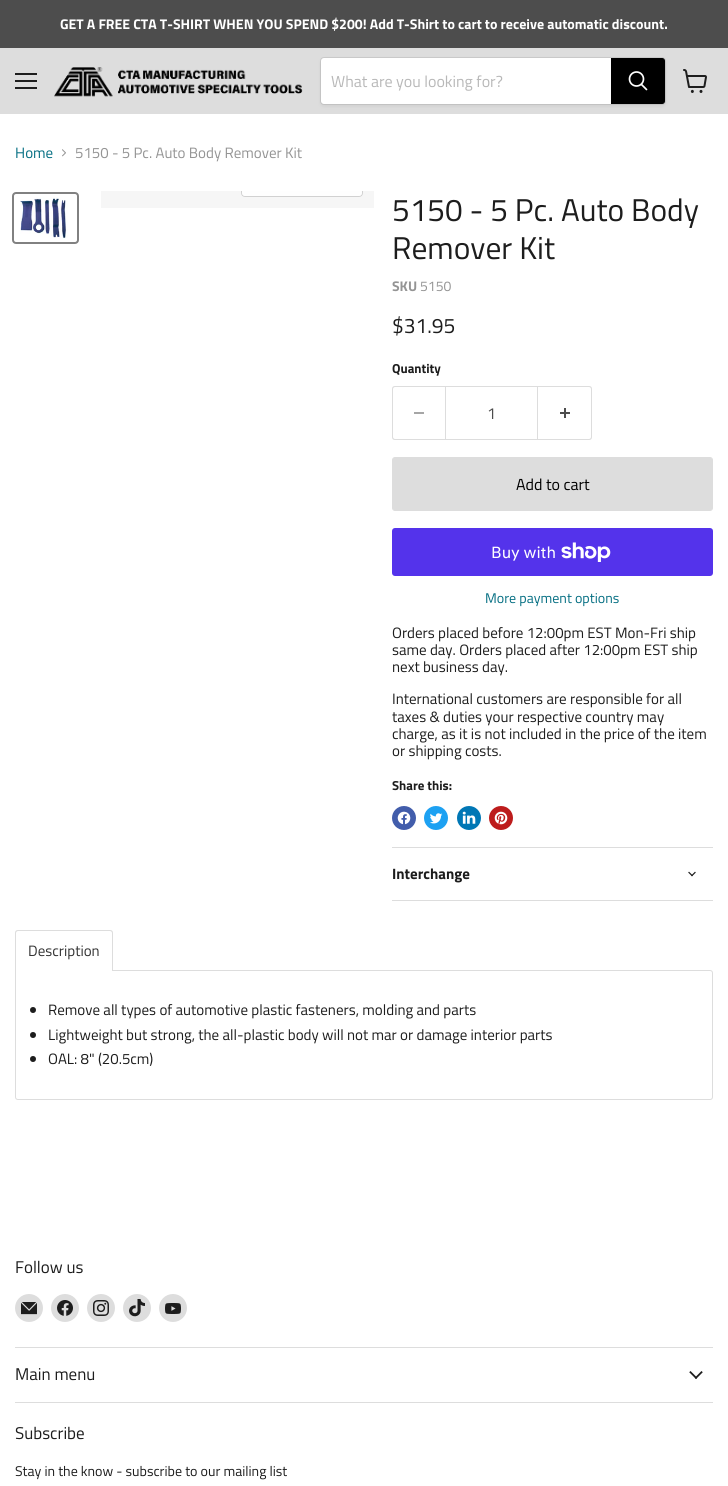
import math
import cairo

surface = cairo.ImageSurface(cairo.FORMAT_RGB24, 728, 1486)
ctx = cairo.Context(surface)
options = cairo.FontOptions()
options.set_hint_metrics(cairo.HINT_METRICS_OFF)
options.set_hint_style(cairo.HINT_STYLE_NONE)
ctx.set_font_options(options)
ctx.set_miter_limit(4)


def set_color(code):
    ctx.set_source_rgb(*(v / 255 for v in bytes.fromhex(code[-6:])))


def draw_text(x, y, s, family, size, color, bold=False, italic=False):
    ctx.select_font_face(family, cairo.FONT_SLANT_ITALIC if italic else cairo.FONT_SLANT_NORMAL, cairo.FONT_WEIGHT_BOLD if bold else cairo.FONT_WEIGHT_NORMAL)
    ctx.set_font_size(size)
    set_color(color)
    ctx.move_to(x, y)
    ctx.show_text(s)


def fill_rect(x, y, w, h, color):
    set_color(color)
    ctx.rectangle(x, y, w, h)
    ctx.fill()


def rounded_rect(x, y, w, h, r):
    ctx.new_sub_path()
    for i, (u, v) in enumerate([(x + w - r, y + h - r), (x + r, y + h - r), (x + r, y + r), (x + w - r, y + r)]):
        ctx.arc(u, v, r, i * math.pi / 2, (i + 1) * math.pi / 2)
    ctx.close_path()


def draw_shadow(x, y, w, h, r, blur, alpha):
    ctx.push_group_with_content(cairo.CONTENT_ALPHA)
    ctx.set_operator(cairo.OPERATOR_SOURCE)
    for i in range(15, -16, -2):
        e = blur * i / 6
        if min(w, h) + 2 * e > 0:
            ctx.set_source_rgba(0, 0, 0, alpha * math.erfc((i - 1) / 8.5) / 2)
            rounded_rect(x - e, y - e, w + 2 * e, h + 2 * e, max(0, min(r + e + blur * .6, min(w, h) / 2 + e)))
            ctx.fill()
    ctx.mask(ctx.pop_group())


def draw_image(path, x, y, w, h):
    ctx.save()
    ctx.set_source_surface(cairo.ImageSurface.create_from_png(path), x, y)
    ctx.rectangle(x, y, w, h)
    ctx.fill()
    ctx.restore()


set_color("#ffffff")
ctx.paint()
fill_rect(0, 0, 728, 48, "#4d4d4d")
draw_text(60, 29, "GET A FREE CTA T-SHIRT WHEN YOU SPEND $200! Add T-Shirt to cart to receive automatic discount.", "Titillium Web", 14.05, "#ffffff", bold=True)
fill_rect(0, 48, 728, 66, "#dddddd")
fill_rect(15, 73, 22, 2, "#1d1d1d")
fill_rect(15, 80, 22, 2, "#1d1d1d")
fill_rect(15, 87, 22, 2, "#1d1d1d")
draw_image("assets/img1.png", 54, 67, 249, 30)
set_color("#808080")
draw_shadow(320, 59, 346, 48, 4, 1.5, 0.11)
rounded_rect(320.5, 57.5, 345, 47, 3.5)
ctx.set_source_rgba(0.502, 0.502, 0.502, 0.2)
ctx.set_line_width(1)
ctx.stroke()
set_color("#ffffff")
ctx.new_path()
ctx.move_to(324, 58)
ctx.line_to(611, 58)
ctx.line_to(611, 104)
ctx.line_to(324, 104)
ctx.curve_to(322.5, 104, 321, 102.5, 321, 101)
ctx.line_to(321, 61)
ctx.curve_to(321, 59.5, 322.5, 58, 324, 58)
ctx.close_path()
ctx.fill()
draw_text(331, 87, "What are you looking for?", "Titillium Web", 16, "#b8b8b8")
set_color("#000000")
ctx.new_path()
ctx.move_to(611.5, 58.5)
ctx.line_to(662, 58.5)
ctx.curve_to(663.5, 58.5, 664.5, 59.5, 664.5, 61)
ctx.line_to(664.5, 101)
ctx.curve_to(664.5, 102.5, 663.5, 103.5, 662, 103.5)
ctx.line_to(611.5, 103.5)
ctx.close_path()
ctx.fill_preserve()
ctx.stroke()
ctx.new_path()
ctx.move_to(646.5, 89.5)
ctx.line_to(641.5, 84.5)
set_color("#ffffff")
ctx.set_line_width(1.7)
ctx.set_line_cap(cairo.LINE_CAP_ROUND)
ctx.stroke()
ctx.arc(636.5, 79, 7, 0, 2 * math.pi)
ctx.set_line_cap(cairo.LINE_CAP_BUTT)
ctx.stroke()
draw_image("assets/img2.png", 683, 69, 24, 24)
draw_text(15, 158, "Home", "Titillium Web", 15, "#046e82")
draw_image("assets/img3.png", 62, 149, 4, 8)
draw_text(75, 158, "5150 - 5 Pc. Auto Body Remover Kit", "Titillium Web", 15, "#949494")
fill_rect(101, 191, 273, 17, "#f6f6f6")
ctx.save()
ctx.rectangle(101, 191, 273, 17)
ctx.clip()
rounded_rect(241.5, 167.5, 121, 29, 3.5)
set_color("#d1d1d1")
ctx.set_line_width(1)
ctx.stroke()
ctx.restore()
ctx.set_source_rgba(1, 1, 1, 0.9)
ctx.new_path()
ctx.move_to(242, 191)
ctx.line_to(362, 191)
ctx.line_to(362, 193)
ctx.curve_to(362, 194.5, 360.5, 196, 359, 196)
ctx.line_to(245, 196)
ctx.curve_to(243.5, 196, 242, 194.5, 242, 193)
ctx.close_path()
ctx.fill()
rounded_rect(13, 193, 65, 50, 3)
set_color("#818181")
ctx.set_line_width(2)
ctx.stroke()
draw_image("assets/img4.png", 20, 197, 48, 42)
draw_text(392, 221, "5150 - 5 Pc. Auto Body", "Titillium Web", 31.5, "#1d1d1d")
draw_text(392, 259, "Remover Kit", "Titillium Web", 31.5, "#1d1d1d")
draw_text(392, 291, "SKU", "Titillium Web", 14, "#949494", bold=True)
draw_text(420, 291, "5150", "Titillium Web", 14, "#949494")
draw_text(392, 333, "$31.95", "Titillium Web", 21, "#1d1d1d")
draw_text(392, 373, "Quantity", "Titillium Web", 13, "#1d1d1d", bold=True)
set_color("#dddddd")
ctx.set_fill_rule(cairo.FILL_RULE_EVEN_ODD)
ctx.new_path()
ctx.move_to(395, 386)
ctx.line_to(445, 386)
ctx.line_to(445, 440)
ctx.line_to(395, 440)
ctx.curve_to(393, 440, 392, 439, 392, 437)
ctx.line_to(392, 389)
ctx.curve_to(392, 387, 393, 386, 395, 386)
ctx.close_path()
ctx.move_to(395, 387)
ctx.line_to(445, 387)
ctx.line_to(445, 439)
ctx.line_to(395, 439)
ctx.curve_to(394, 439, 393, 438, 393, 437)
ctx.line_to(393, 389)
ctx.curve_to(393, 388, 394, 387, 395, 387)
ctx.close_path()
ctx.fill()
fill_rect(414, 412, 10, 2, "#a6a6a6")
ctx.rectangle(445.5, 386.5, 92, 53)
set_color("#dddddd")
ctx.set_line_width(1)
ctx.stroke()
draw_text(487, 419, "1", "Titillium Web", 16, "#4d4d4d")
set_color("#dddddd")
ctx.new_path()
ctx.move_to(538, 386)
ctx.line_to(589, 386)
ctx.curve_to(591, 386, 592, 387, 592, 389)
ctx.line_to(592, 437)
ctx.curve_to(592, 439, 591, 440, 589, 440)
ctx.line_to(538, 440)
ctx.close_path()
ctx.move_to(538, 387)
ctx.line_to(589, 387)
ctx.curve_to(590, 387, 591, 388, 591, 389)
ctx.line_to(591, 437)
ctx.curve_to(591, 438, 590, 439, 589, 439)
ctx.line_to(538, 439)
ctx.close_path()
ctx.fill()
draw_image("assets/img5.png", 560, 408, 10, 10)
rounded_rect(392.5, 457.5, 320, 53, 2.5)
ctx.fill_preserve()
ctx.stroke()
draw_text(516, 490, "Add to cart", "Titillium Web", 16, "#000000")
set_color("#5433eb")
rounded_rect(392, 528, 321, 48, 3)
ctx.fill()
draw_text(491, 558, "Buy with", "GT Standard", 16, "#ffffff")
draw_image("assets/img6.png", 561, 542, 50, 20)
draw_text(485, 603, "More payment options", "Titillium Web", 14.05, "#046e82")
draw_text(392, 638, "Orders placed before 12:00pm EST Mon-Fri ship", "Titillium Web", 15, "#1d1d1d")
draw_text(392, 655, "same day. Orders placed after 12:00pm EST ship", "Titillium Web", 15, "#1d1d1d")
draw_text(392, 672, "next business day.", "Titillium Web", 15, "#1d1d1d")
draw_text(392, 704, "International customers are responsible for all", "Titillium Web", 15, "#1d1d1d")
draw_text(392, 722, "taxes & duties your respective country may", "Titillium Web", 15, "#1d1d1d")
draw_text(392, 739, "charge, as it is not included in the price of the item", "Titillium Web", 15, "#1d1d1d")
draw_text(392, 756, "or shipping costs.", "Titillium Web", 15, "#1d1d1d")
draw_text(392, 790, "Share this:", "Titillium Web", 13, "#1d1d1d", bold=True)
set_color("#425dab")
ctx.new_path()
ctx.arc(404, 818, 12, 0, 2 * math.pi)
ctx.fill()
draw_image("assets/img7.png", 397, 811, 14, 14)
set_color("#1da1f2")
ctx.arc(436, 818, 12, 0, 2 * math.pi)
ctx.fill()
draw_image("assets/img8.png", 430, 813, 13, 11)
set_color("#0077b5")
ctx.arc(469, 818, 12, 0, 2 * math.pi)
ctx.fill()
draw_image("assets/img9.png", 462, 811, 14, 13)
set_color("#bd1c1c")
ctx.arc(501, 818, 12, 0, 2 * math.pi)
ctx.fill()
draw_image("assets/img10.png", 494, 811, 14, 14)
fill_rect(392, 847, 321, 1, "#dddddd")
fill_rect(392, 900, 321, 1, "#dddddd")
draw_text(392, 879, "Interchange", "Titillium Web", 15, "#1d1d1d", bold=True)
draw_image("assets/img11.png", 688, 871, 8, 6)
ctx.new_path()
ctx.move_to(15.5, 970.5)
ctx.line_to(710, 970.5)
ctx.curve_to(711.5, 970.5, 712.5, 971.5, 712.5, 973)
ctx.line_to(712.5, 1097)
ctx.curve_to(712.5, 1098.5, 711.5, 1099.5, 710, 1099.5)
ctx.line_to(18, 1099.5)
ctx.curve_to(16.5, 1099.5, 15.5, 1098.5, 15.5, 1097)
ctx.close_path()
set_color("#dddddd")
ctx.stroke()
set_color("#ffffff")
ctx.new_path()
ctx.move_to(18, 931)
ctx.line_to(110, 931)
ctx.curve_to(111, 931, 112, 932, 112, 933)
ctx.line_to(112, 971)
ctx.line_to(16, 971)
ctx.line_to(16, 933)
ctx.curve_to(16, 932, 17, 931, 18, 931)
ctx.close_path()
ctx.fill()
set_color("#dddddd")
ctx.new_path()
ctx.move_to(18, 930)
ctx.line_to(110, 930)
ctx.curve_to(112, 930, 113, 931, 113, 933)
ctx.line_to(113, 971)
ctx.line_to(15, 971)
ctx.line_to(15, 933)
ctx.curve_to(15, 931, 16, 930, 18, 930)
ctx.close_path()
ctx.move_to(18, 931)
ctx.line_to(110, 931)
ctx.curve_to(111, 931, 112, 932, 112, 933)
ctx.line_to(112, 971)
ctx.line_to(16, 971)
ctx.line_to(16, 933)
ctx.curve_to(16, 932, 17, 931, 18, 931)
ctx.close_path()
ctx.fill()
draw_text(28, 956, "Description", "Titillium Web", 15, "#333333")
set_color("#1d1d1d")
ctx.new_path()
ctx.arc(33, 1010, 3, 0, 2 * math.pi)
ctx.fill()
draw_text(48, 1015, "Remove all types of automotive plastic fasteners, molding and parts", "Titillium Web", 15, "#1d1d1d")
ctx.new_path()
ctx.arc(33, 1035, 3, 0, 2 * math.pi)
ctx.fill()
draw_text(48, 1040, "Lightweight but strong, the all-plastic body will not mar or damage interior parts", "Titillium Web", 15, "#1d1d1d")
ctx.new_path()
ctx.arc(33, 1059, 3, 0, 2 * math.pi)
ctx.fill()
draw_text(48, 1064, "OAL: 8\" (20.5cm)", "Titillium Web", 15, "#1d1d1d")
fill_rect(15, 1347, 698, 1, "#dddddd")
draw_text(15, 1273, "Follow us", "Titillium Web", 17, "#1d1d1d")
set_color("#dddddd")
ctx.new_path()
ctx.arc(29, 1308, 14, 0, 2 * math.pi)
ctx.fill()
draw_image("assets/img12.png", 21, 1302, 16, 13)
ctx.arc(65, 1308, 14, 0, 2 * math.pi)
ctx.fill()
draw_image("assets/img13.png", 57, 1300, 16, 16)
ctx.arc(101, 1308, 14, 0, 2 * math.pi)
ctx.fill()
draw_image("assets/img14.png", 93, 1300, 16, 16)
ctx.arc(137, 1308, 14, 0, 2 * math.pi)
ctx.fill()
draw_image("assets/img15.png", 129, 1299, 16, 18)
ctx.arc(173, 1308, 14, 0, 2 * math.pi)
ctx.fill()
draw_image("assets/img16.png", 165, 1303, 16, 11)
fill_rect(15, 1402, 698, 1, "#dddddd")
draw_text(15, 1380, "Main menu", "Titillium Web", 17, "#1d1d1d")
draw_image("assets/img17.png", 689, 1371, 14, 8)
draw_text(15, 1439, "Subscribe", "Titillium Web", 17, "#1d1d1d")
draw_text(15, 1476, "Stay in the know - subscribe to our mailing list", "Titillium Web", 14.05, "#1d1d1d")
surface.write_to_png("output.png")
